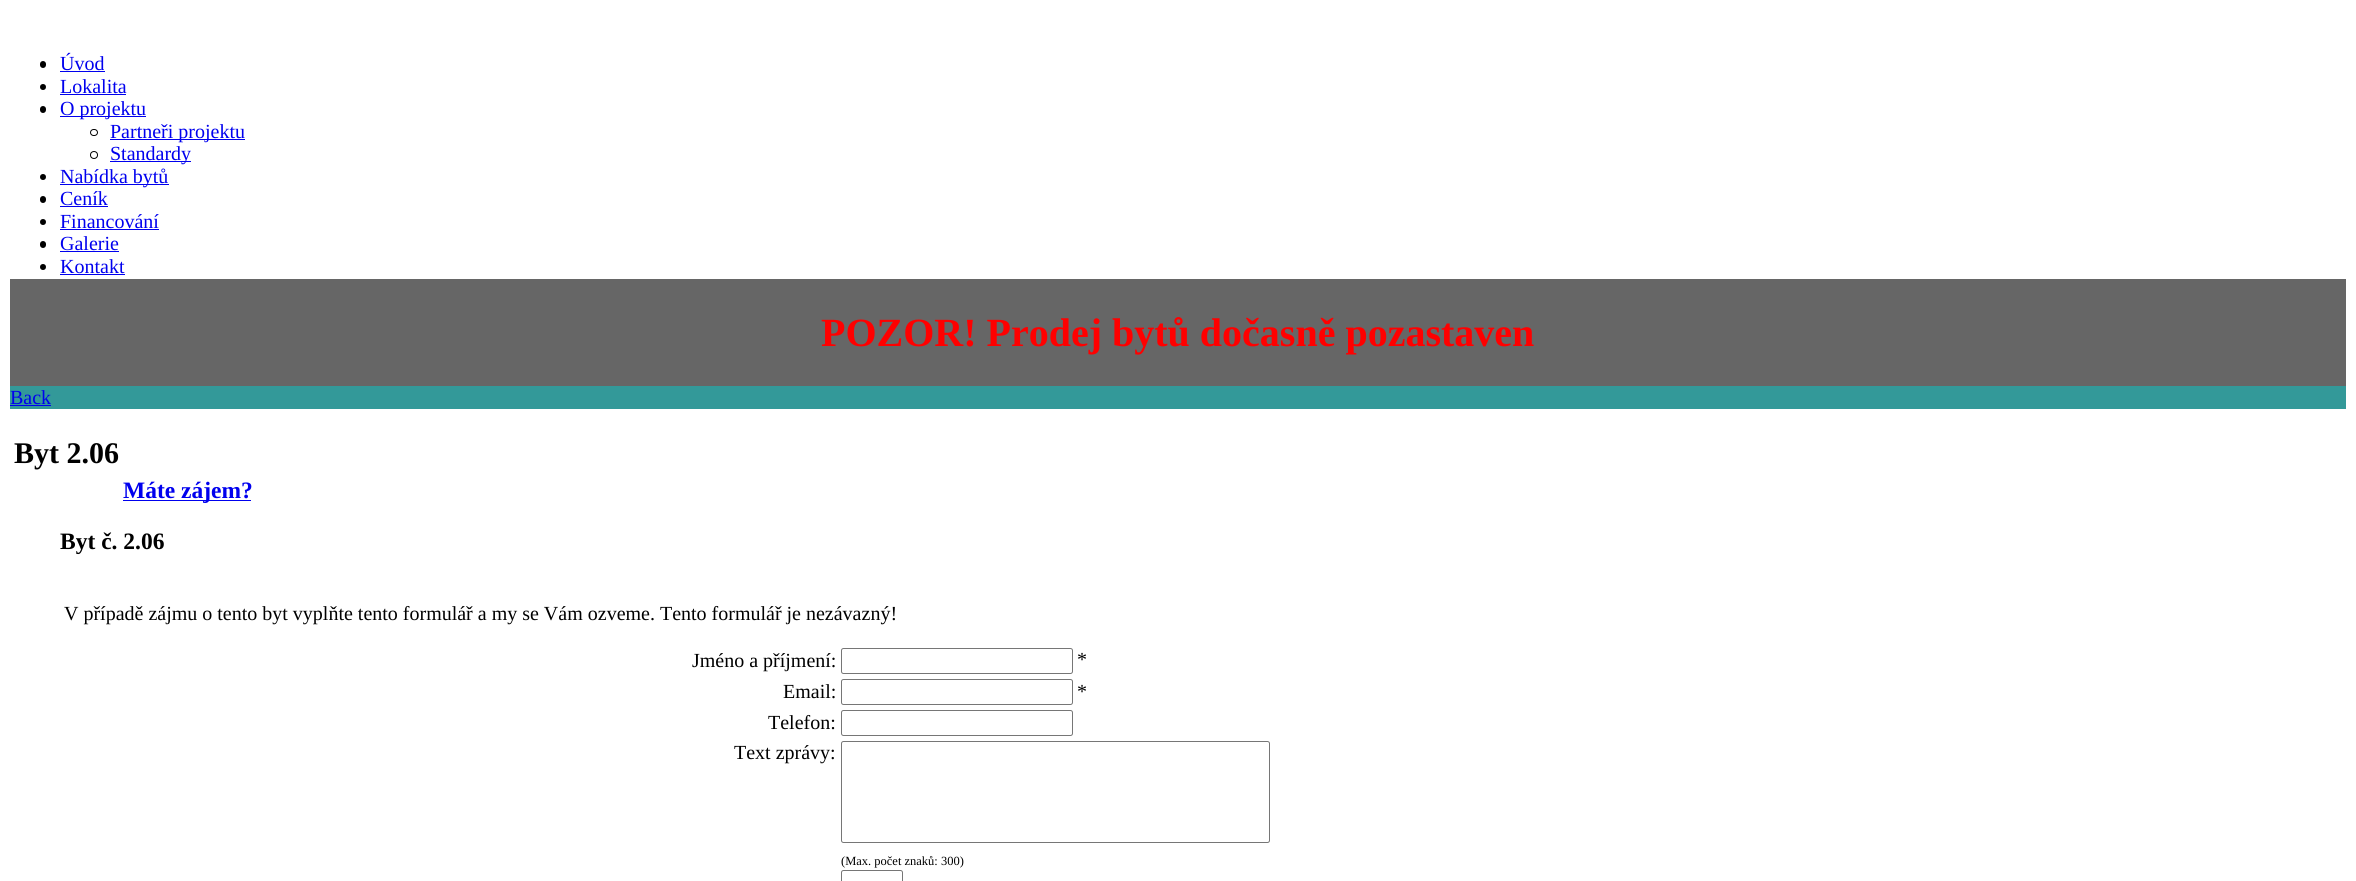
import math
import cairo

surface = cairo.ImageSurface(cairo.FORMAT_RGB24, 2356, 881)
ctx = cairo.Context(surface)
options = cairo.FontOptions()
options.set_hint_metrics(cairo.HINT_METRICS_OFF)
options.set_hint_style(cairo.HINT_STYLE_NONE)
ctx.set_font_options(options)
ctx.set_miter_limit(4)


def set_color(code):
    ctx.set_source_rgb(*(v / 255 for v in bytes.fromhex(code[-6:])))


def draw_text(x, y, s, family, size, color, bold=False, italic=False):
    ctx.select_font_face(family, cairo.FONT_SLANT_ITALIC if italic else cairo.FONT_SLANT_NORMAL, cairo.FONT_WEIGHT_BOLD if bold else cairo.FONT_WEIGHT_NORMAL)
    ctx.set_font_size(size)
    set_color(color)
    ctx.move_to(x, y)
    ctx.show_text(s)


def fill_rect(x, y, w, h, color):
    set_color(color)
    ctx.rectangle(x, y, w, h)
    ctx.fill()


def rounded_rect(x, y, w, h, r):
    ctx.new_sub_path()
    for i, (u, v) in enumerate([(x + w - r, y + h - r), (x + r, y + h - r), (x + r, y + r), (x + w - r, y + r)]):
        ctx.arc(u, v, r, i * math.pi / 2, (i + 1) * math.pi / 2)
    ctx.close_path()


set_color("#ffffff")
ctx.paint()
set_color("#000000")
rounded_rect(40, 61, 6, 7, 3)
ctx.fill()
draw_text(60, 70, "Úvod", "Liberation Serif", 20, "#0000ee")
fill_rect(60, 71, 45, 1, "#0000ee")
set_color("#000000")
ctx.new_path()
ctx.arc(43, 87, 3, 0, 2 * math.pi)
ctx.fill()
draw_text(60, 93, "Lokalita", "Liberation Serif", 20, "#0000ee")
fill_rect(60, 94, 66, 1, "#0000ee")
set_color("#000000")
rounded_rect(40, 106, 6, 7, 3)
ctx.fill()
fill_rect(60, 116, 86, 1, "#0000ee")
draw_text(60, 115, "O projektu", "Liberation Serif", 20, "#0000ee")
rounded_rect(90.5, 129.5, 7, 6, 3)
set_color("#000000")
ctx.set_line_width(1)
ctx.stroke()
fill_rect(110, 139, 135, 1, "#0000ee")
draw_text(110, 138, "Partneři projektu", "Liberation Serif", 20, "#0000ee")
ctx.new_path()
ctx.arc(94, 155, 3.5, 0, 2 * math.pi)
set_color("#000000")
ctx.stroke()
fill_rect(110, 161, 81, 1, "#0000ee")
draw_text(110, 160, "Standardy", "Liberation Serif", 20, "#0000ee")
set_color("#000000")
ctx.new_path()
ctx.arc(43, 177, 3, 0, 2 * math.pi)
ctx.fill()
fill_rect(60, 184, 109, 1, "#0000ee")
draw_text(60, 183, "Nabídka bytů", "Liberation Serif", 20, "#0000ee")
set_color("#000000")
rounded_rect(40, 196, 6, 7, 3)
ctx.fill()
draw_text(60, 205, "Ceník", "Liberation Serif", 20, "#0000ee")
fill_rect(60, 206, 48, 1, "#0000ee")
set_color("#000000")
ctx.new_path()
ctx.arc(43, 222, 3, 0, 2 * math.pi)
ctx.fill()
draw_text(60, 228, "Financování", "Liberation Serif", 20, "#0000ee")
fill_rect(60, 229, 99, 1, "#0000ee")
set_color("#000000")
rounded_rect(40, 241, 6, 7, 3)
ctx.fill()
draw_text(60, 250, "Galerie", "Liberation Serif", 20, "#0000ee")
fill_rect(60, 251, 59, 1, "#0000ee")
set_color("#000000")
ctx.new_path()
ctx.arc(43, 267, 3, 0, 2 * math.pi)
ctx.fill()
draw_text(60, 273, "Kontakt", "Liberation Serif", 20, "#0000ee")
fill_rect(60, 274, 65, 1, "#0000ee")
fill_rect(10, 279, 2336, 107, "#666666")
draw_text(821, 346, "POZOR! Prodej bytů dočasně pozastaven", "Liberation Serif", 40, "#ff0000", bold=True)
fill_rect(10, 386, 2336, 23, "#339999")
draw_text(10, 404, "Back", "Liberation Serif", 20, "#0000ee")
fill_rect(10, 405, 41, 1, "#0000ee")
draw_text(14, 463, "Byt 2.06", "Liberation Serif", 30, "#000000", bold=True)
fill_rect(123, 500, 128, 1, "#0000ee")
draw_text(123, 498, "Máte zájem?", "Liberation Serif", 23.5, "#0000ee", bold=True)
draw_text(60, 549, "Byt č. 2.06", "Liberation Serif", 23.5, "#000000", bold=True)
draw_text(64, 620, "V případě zájmu o tento byt vyplňte tento formulář a my se Vám ozveme. Tento formulář je nezávazný!", "Liberation Serif", 20, "#000000")
draw_text(692, 667, "Jméno a příjmení:", "Liberation Serif", 20, "#000000")
rounded_rect(841.5, 648.5, 231, 25, 2)
set_color("#767676")
ctx.stroke()
draw_text(1077, 666, "*", "Liberation Serif", 20, "#000000")
draw_text(783, 698, "Email:", "Liberation Serif", 20, "#000000")
rounded_rect(841.5, 679.5, 231, 25, 2)
set_color("#767676")
ctx.stroke()
draw_text(1077, 698, "*", "Liberation Serif", 20, "#000000")
draw_text(768, 729, "Telefon:", "Liberation Serif", 20, "#000000")
rounded_rect(841.5, 710.5, 231, 25, 2)
set_color("#767676")
ctx.stroke()
draw_text(734, 759, "Text zprávy:", "Liberation Serif", 20, "#000000")
rounded_rect(841.5, 741.5, 428, 101, 2)
set_color("#767676")
ctx.stroke()
draw_text(841, 865, "(Max. počet znaků: 300)", "Liberation Serif", 12.5, "#000000")
rounded_rect(841.5, 870.5, 61, 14, 2)
set_color("#767676")
ctx.stroke()
surface.write_to_png("output.png")
